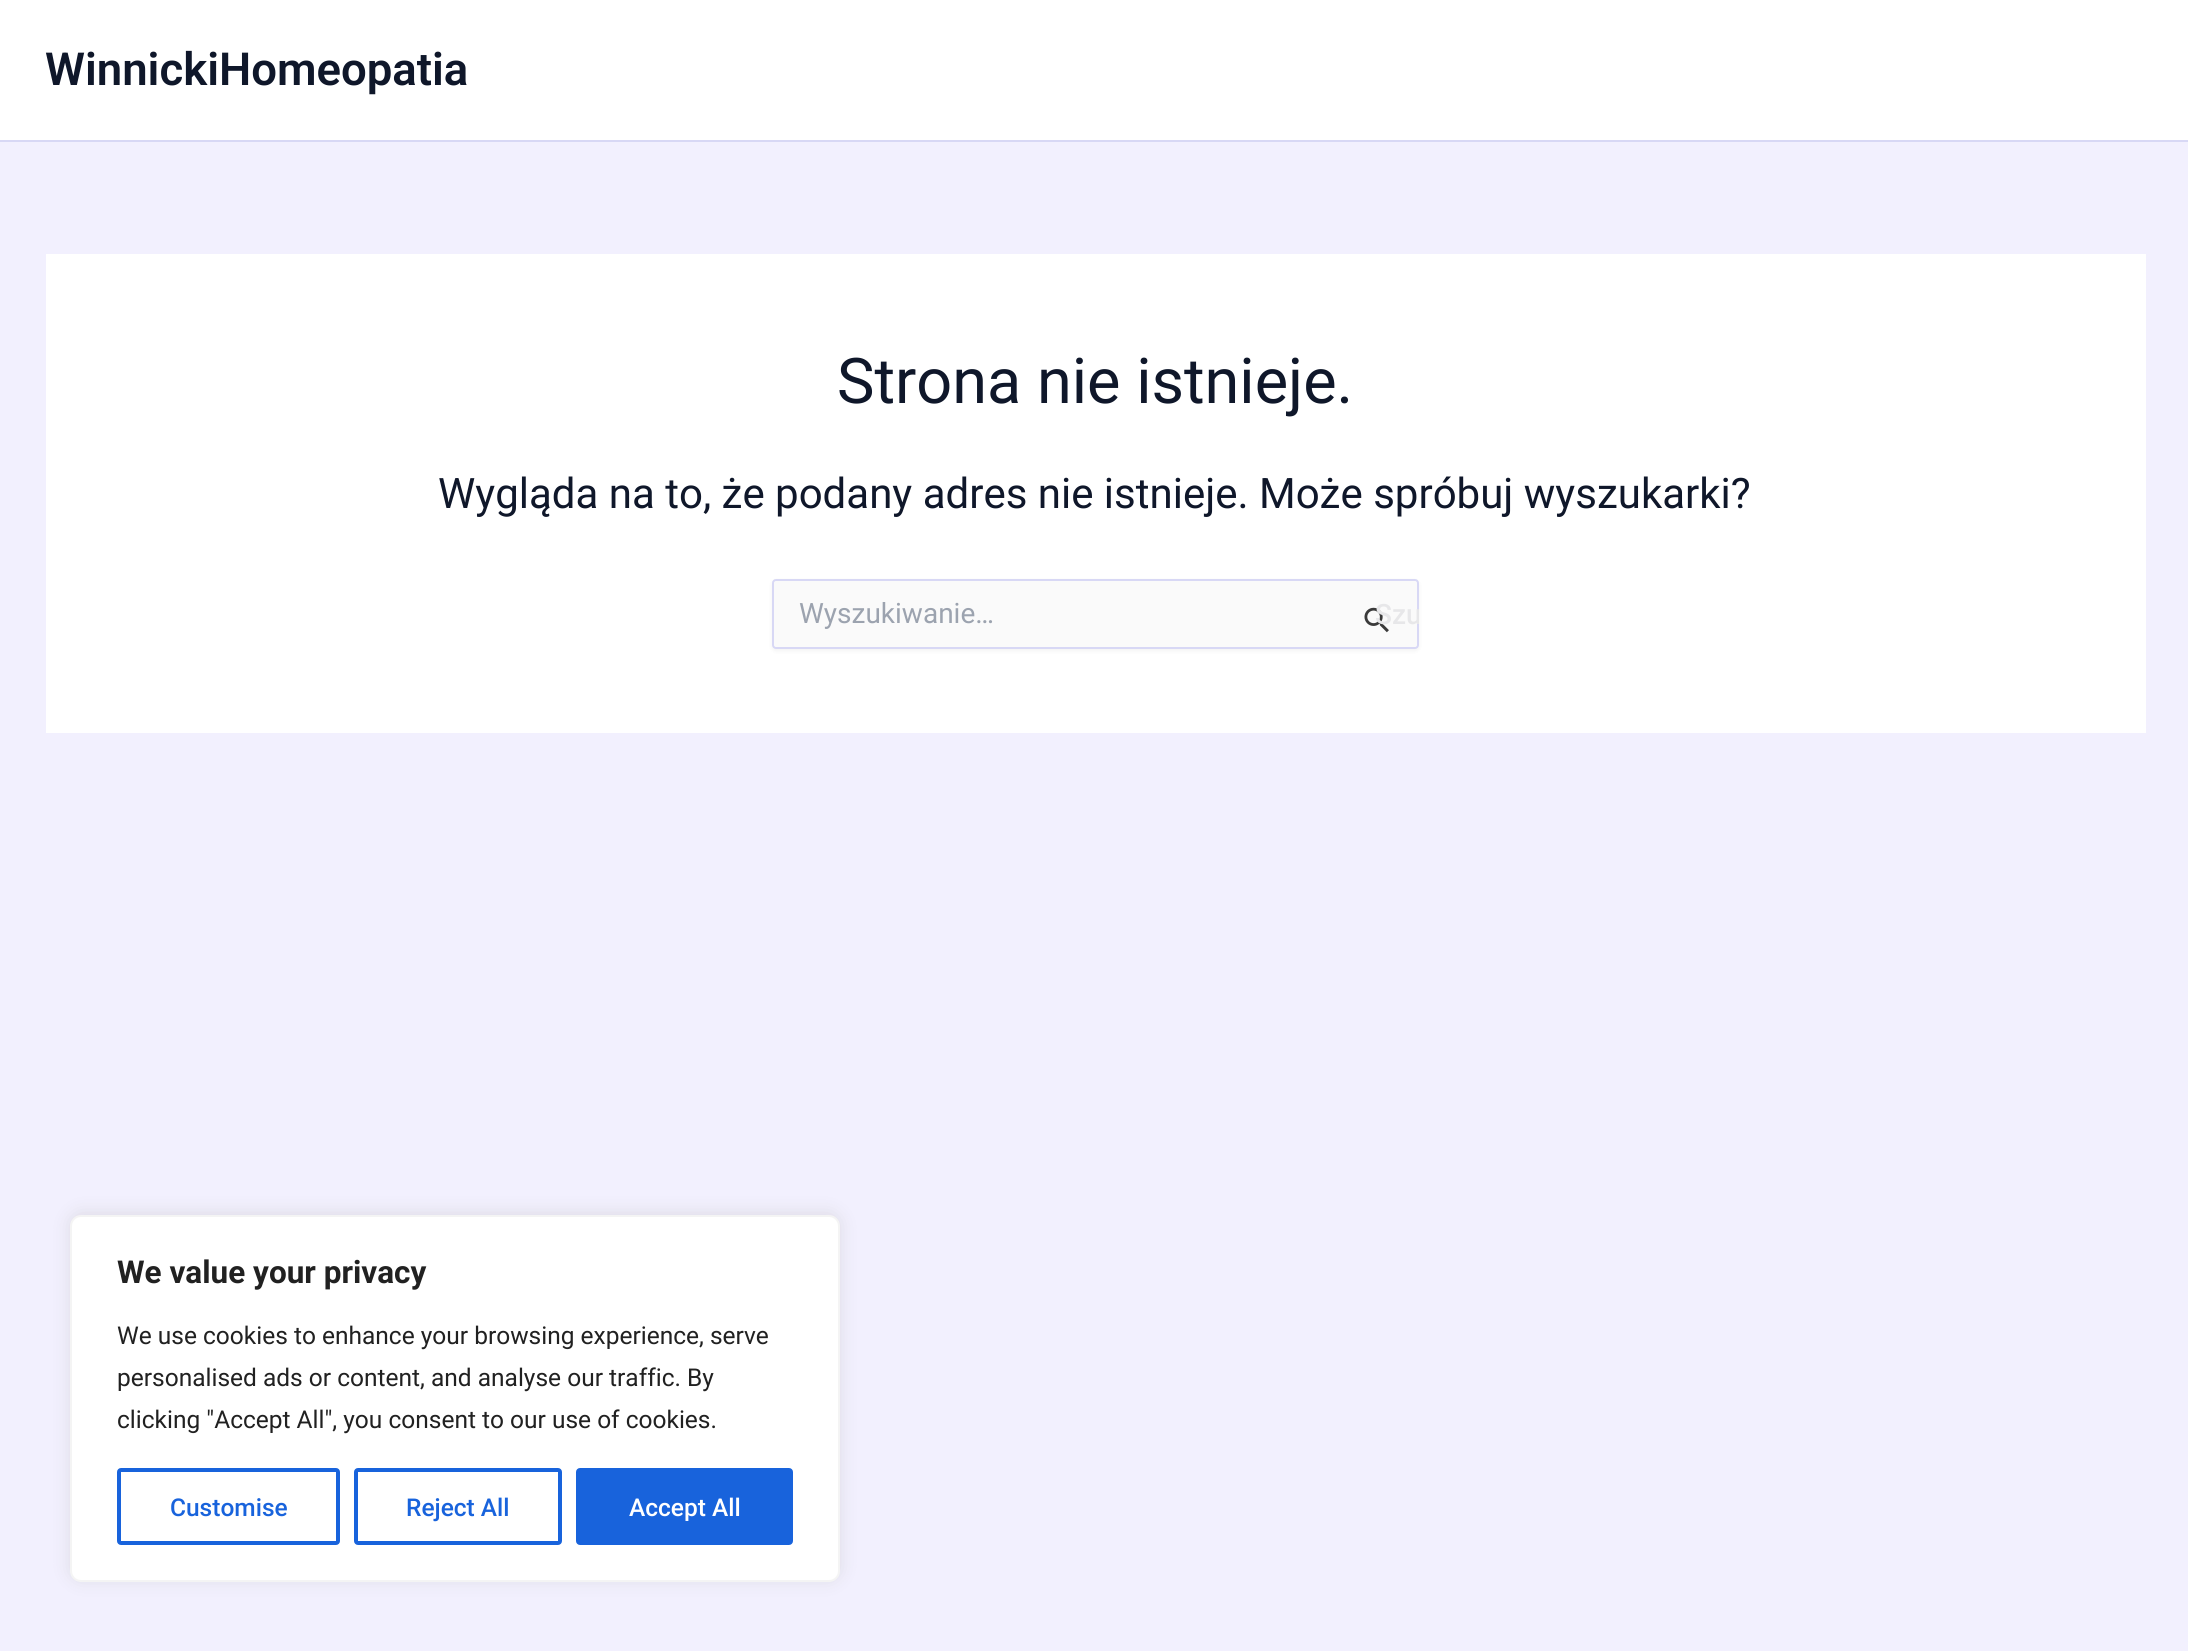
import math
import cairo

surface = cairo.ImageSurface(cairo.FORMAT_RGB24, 2188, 1651)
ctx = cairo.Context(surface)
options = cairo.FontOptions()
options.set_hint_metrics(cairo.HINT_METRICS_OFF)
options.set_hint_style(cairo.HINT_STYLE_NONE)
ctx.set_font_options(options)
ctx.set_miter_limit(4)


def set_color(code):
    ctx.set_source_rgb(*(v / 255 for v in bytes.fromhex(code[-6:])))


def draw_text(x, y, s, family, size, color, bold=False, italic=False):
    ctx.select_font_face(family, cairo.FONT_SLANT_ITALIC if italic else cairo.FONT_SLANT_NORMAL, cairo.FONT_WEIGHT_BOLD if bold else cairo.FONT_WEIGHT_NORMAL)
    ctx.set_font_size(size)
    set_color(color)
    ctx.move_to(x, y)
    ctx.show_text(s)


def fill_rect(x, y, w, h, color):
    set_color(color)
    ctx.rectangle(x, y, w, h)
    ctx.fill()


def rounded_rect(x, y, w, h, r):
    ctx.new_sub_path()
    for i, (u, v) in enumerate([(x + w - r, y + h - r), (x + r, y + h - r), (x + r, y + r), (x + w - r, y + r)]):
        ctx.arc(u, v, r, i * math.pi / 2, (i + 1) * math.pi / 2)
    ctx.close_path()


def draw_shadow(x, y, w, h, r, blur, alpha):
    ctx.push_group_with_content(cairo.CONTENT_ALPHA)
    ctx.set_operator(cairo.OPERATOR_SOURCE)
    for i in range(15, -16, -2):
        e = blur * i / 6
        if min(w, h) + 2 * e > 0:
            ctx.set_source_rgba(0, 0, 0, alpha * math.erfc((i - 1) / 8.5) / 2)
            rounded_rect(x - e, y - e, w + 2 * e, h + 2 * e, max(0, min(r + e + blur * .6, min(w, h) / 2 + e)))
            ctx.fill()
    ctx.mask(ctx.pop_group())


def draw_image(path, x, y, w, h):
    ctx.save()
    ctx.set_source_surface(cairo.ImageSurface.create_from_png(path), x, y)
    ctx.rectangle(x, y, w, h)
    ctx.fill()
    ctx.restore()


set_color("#f2f0fe")
ctx.paint()
fill_rect(0, 0, 2188, 140, "#ffffff")
fill_rect(0, 140, 2188, 2, "#d8d8f5")
draw_text(45, 85, "WinnickiHomeopatia", "Roboto SemiBold", 45.5, "#0f172a")
fill_rect(46, 254, 2100, 479, "#ffffff")
draw_text(837, 403, "Strona nie istnieje.", "Roboto", 63, "#0f172a")
draw_text(438, 508, "Wygląda na to, że podany adres nie istnieje. Może spróbuj wyszukarki?", "Roboto", 42, "#0f172a")
set_color("#000000")
draw_shadow(772, 581, 647, 70, 4, 2, 0.05)
set_color("#fafafa")
rounded_rect(773, 580, 645, 68, 3)
ctx.fill_preserve()
set_color("#d8d8f5")
ctx.stroke()
draw_text(799, 623, "Wyszukiwanie…", "Roboto", 28, "#9ca3af")
draw_image("assets/img1.png", 1364, 607, 25, 26)
ctx.save()
rounded_rect(1341, 579, 78, 74, 4)
ctx.clip()
draw_text(1375, 624, "Szu", "Roboto Medium", 28, "#e7e7e9")
ctx.restore()
set_color("#acabab")
draw_shadow(70, 1213, 770, 367, 11, 9, 0.3)
set_color("#ffffff")
rounded_rect(71, 1216, 768, 365, 10)
ctx.fill_preserve()
set_color("#f4f4f4")
ctx.stroke()
draw_text(117, 1283, "We value your privacy", "Roboto", 31.5, "#212121", bold=True)
draw_text(117, 1344, "We use cookies to enhance your browsing experience, serve", "Roboto", 24.5, "#212121")
draw_text(117, 1386, "personalised ads or content, and analyse our traffic. By", "Roboto", 24.5, "#212121")
draw_text(117, 1428, "clicking \"Accept All\", you consent to our use of cookies.", "Roboto", 24.5, "#212121")
rounded_rect(119, 1470, 219, 73, 2)
set_color("#1863dc")
ctx.set_line_width(4)
ctx.stroke()
draw_text(170, 1516, "Customise", "Roboto Medium", 24.5, "#1863dc")
rounded_rect(356, 1470, 204, 73, 2)
ctx.stroke()
draw_text(406, 1516, "Reject All", "Roboto Medium", 24.5, "#1863dc")
rounded_rect(578, 1470, 213, 73, 2)
ctx.fill_preserve()
ctx.stroke()
draw_text(629, 1516, "Accept All", "Roboto Medium", 24.5, "#ffffff")
surface.write_to_png("output.png")
